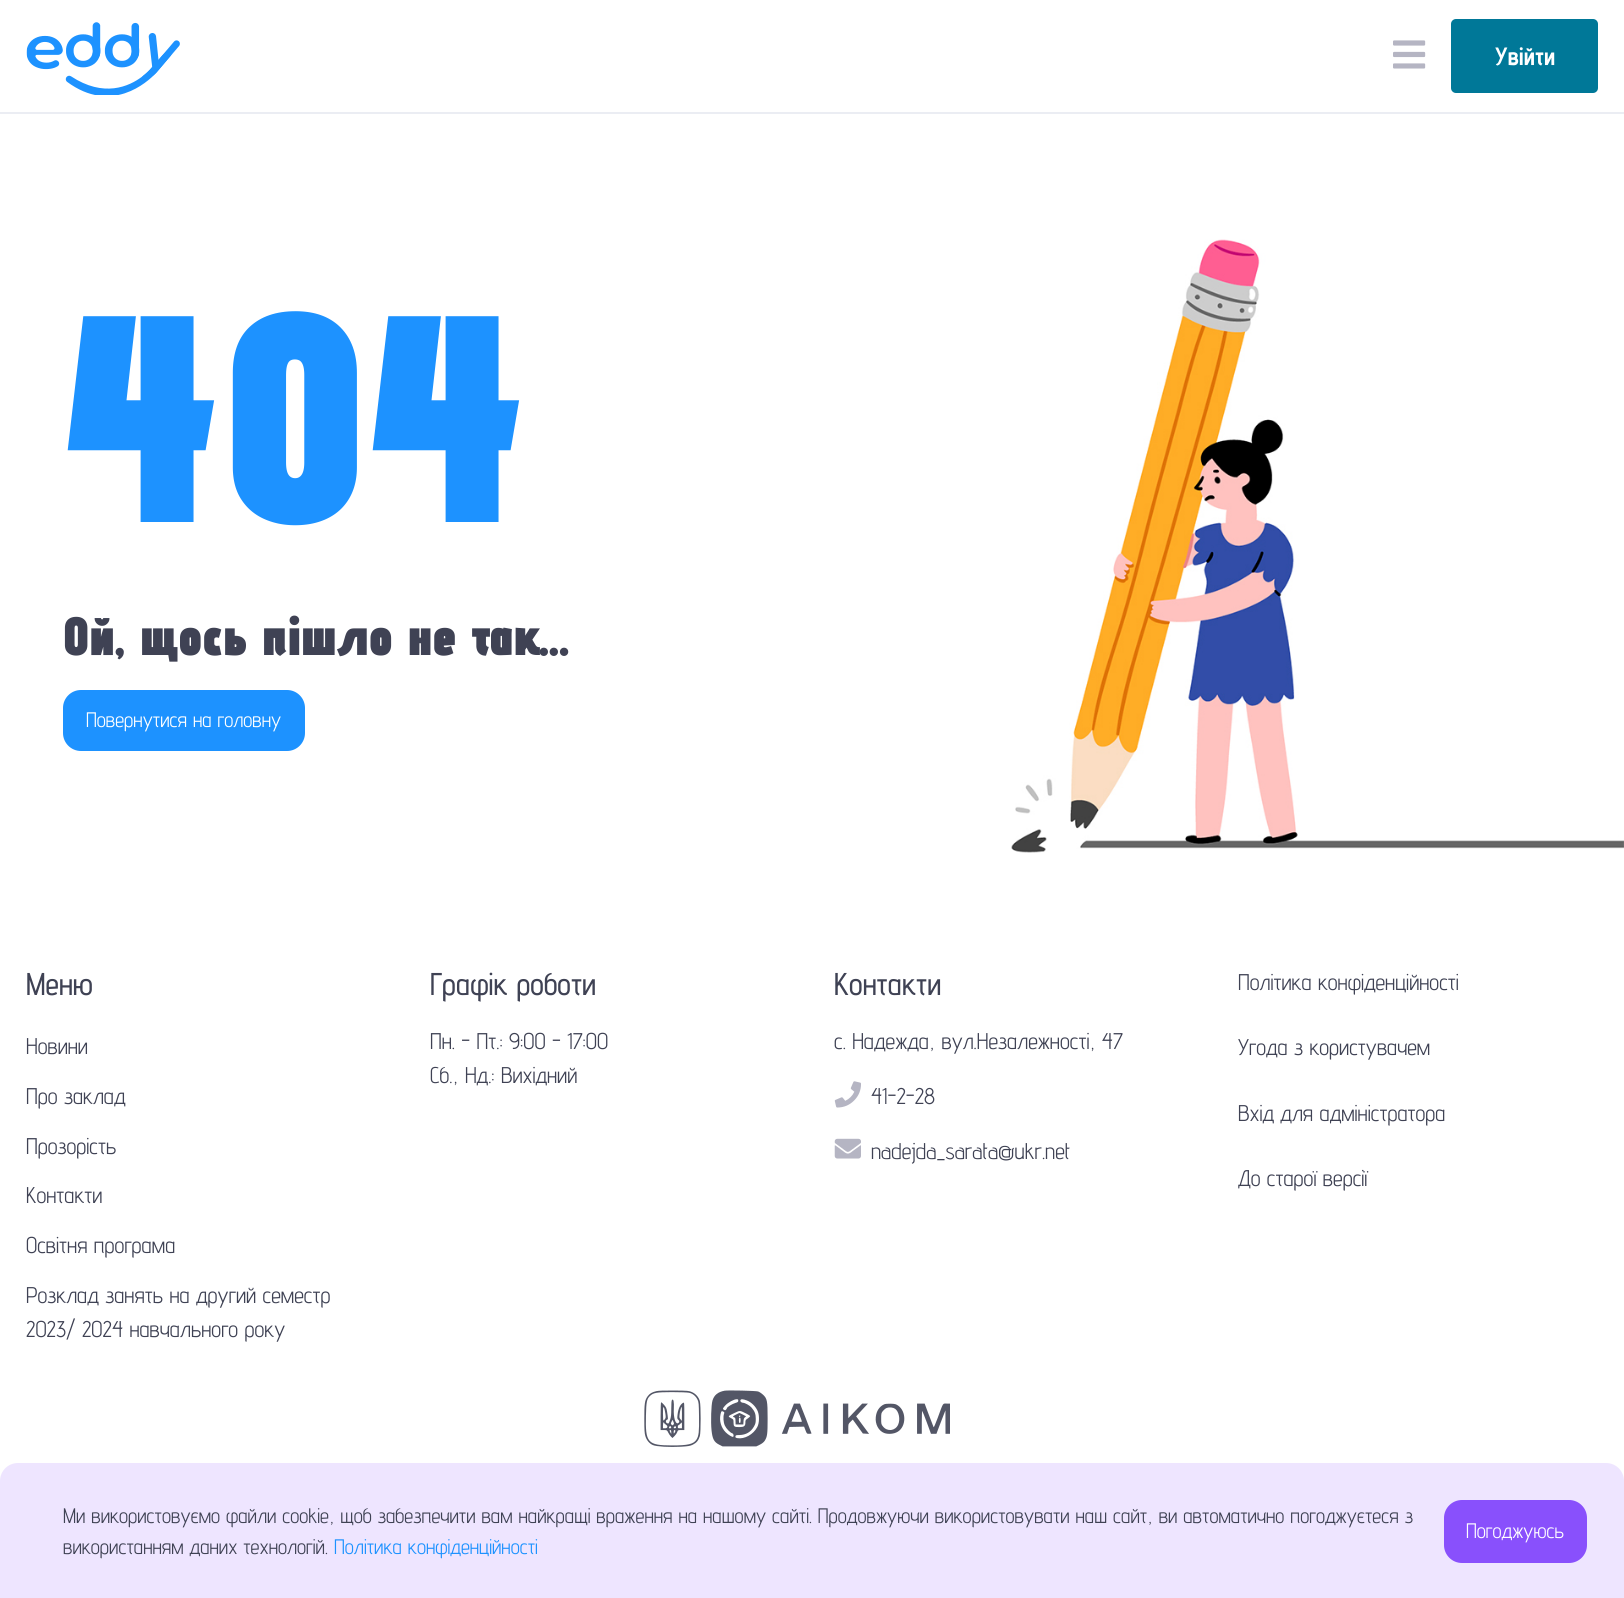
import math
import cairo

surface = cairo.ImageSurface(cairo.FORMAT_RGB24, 1624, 1598)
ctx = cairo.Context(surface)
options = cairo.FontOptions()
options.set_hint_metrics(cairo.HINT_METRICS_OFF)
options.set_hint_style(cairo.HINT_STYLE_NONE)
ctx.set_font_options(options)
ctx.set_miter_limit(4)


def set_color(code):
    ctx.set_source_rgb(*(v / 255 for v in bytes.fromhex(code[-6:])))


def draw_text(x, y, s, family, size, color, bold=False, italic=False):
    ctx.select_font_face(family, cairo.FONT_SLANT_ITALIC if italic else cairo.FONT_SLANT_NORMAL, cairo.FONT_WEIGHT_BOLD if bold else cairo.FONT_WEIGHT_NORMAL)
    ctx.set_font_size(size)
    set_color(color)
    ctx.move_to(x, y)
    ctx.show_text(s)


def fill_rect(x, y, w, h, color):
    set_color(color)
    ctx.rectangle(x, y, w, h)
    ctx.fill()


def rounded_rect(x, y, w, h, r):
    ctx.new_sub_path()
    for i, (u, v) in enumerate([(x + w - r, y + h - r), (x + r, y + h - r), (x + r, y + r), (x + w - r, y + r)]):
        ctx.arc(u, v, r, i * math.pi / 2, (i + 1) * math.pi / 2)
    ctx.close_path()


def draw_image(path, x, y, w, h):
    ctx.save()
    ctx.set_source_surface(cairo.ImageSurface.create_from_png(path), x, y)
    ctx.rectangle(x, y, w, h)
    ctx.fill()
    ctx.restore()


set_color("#ffffff")
ctx.paint()
fill_rect(0, 112, 1624, 2, "#ebedf3")
draw_image("assets/img1.png", 26, 22, 154, 73)
draw_image("assets/img2.png", 1393, 40, 33, 29)
set_color("#007898")
rounded_rect(1451, 19, 147, 74, 5)
ctx.fill()
draw_text(1495, 65, "Увійти", "Advent Pro", 25, "#ffffff", bold=True)
draw_image("assets/img3.png", 1011, 239, 613, 614)
draw_text(63, 522, "404", "Advent Pro Black", 294, "#1d92ff")
draw_text(63, 655, "Ой, щось пішло не так...", "Advent Pro Black", 53.25, "#3f4254")
set_color("#1d92ff")
rounded_rect(64, 691, 240, 59, 17)
ctx.fill_preserve()
ctx.stroke()
draw_text(86, 727, "Повернутися на головну", "Advent Pro", 21, "#ffffff")
draw_text(26, 995, "Меню", "Advent Pro Medium", 31.5, "#3f4254")
draw_text(26, 1054, "Новини", "Advent Pro", 22.75, "#3f4254")
draw_text(26, 1104, "Про заклад", "Advent Pro", 22.75, "#3f4254")
draw_text(26, 1154, "Прозорість", "Advent Pro", 22.75, "#3f4254")
draw_text(26, 1203, "Контакти", "Advent Pro", 22.75, "#3f4254")
draw_text(26, 1253, "Освітня програма", "Advent Pro", 22.75, "#3f4254")
draw_text(26, 1303, "Розклад занять на другий семестр", "Advent Pro", 22.75, "#3f4254")
draw_text(26, 1337, "2023/ 2024 навчального року", "Advent Pro", 22.75, "#3f4254")
draw_text(430, 995, "Графік роботи", "Advent Pro Medium", 31.5, "#3f4254")
draw_text(430, 1049, "Пн. - Пт.: 9:00 - 17:00", "Advent Pro", 22.75, "#3f4254")
draw_text(430, 1083, "Сб., Нд.: Вихідний", "Advent Pro", 22.75, "#3f4254")
draw_text(834, 995, "Контакти", "Advent Pro Medium", 31.5, "#3f4254")
draw_text(834, 1049, "с. Надежда, вул.Незалежності, 47", "Advent Pro", 22.75, "#3f4254")
draw_image("assets/img4.png", 834, 1081, 27, 27)
draw_text(871, 1104, "41-2-28", "Advent Pro", 22.75, "#3f4254")
draw_image("assets/img5.png", 834, 1138, 27, 21)
draw_text(871, 1159, "nadejda_sarata@ukr.net", "Advent Pro", 22.75, "#3f4254")
draw_text(1238, 990, "Політика конфіденційності", "Advent Pro", 22.75, "#3f4254")
draw_text(1238, 1055, "Угода з користувачем", "Advent Pro", 22.75, "#3f4254")
draw_text(1238, 1121, "Вхід для адміністратора", "Advent Pro", 22.75, "#3f4254")
draw_text(1238, 1186, "До старої версії", "Advent Pro", 22.75, "#3f4254")
draw_image("assets/img6.png", 644, 1390, 306, 57)
set_color("#eee5ff")
ctx.new_path()
ctx.move_to(18, 1463)
ctx.line_to(1606, 1463)
ctx.curve_to(1616, 1463, 1624, 1471, 1624, 1481)
ctx.line_to(1624, 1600)
ctx.line_to(0, 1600)
ctx.line_to(0, 1481)
ctx.curve_to(0, 1471, 8, 1463, 18, 1463)
ctx.close_path()
ctx.fill()
draw_text(63, 1523, "Ми використовуємо файли cookie, щоб забезпечити вам найкращі враження на нашому сайті. Продовжуючи використовувати наш сайт, ви автоматично погоджуєтеся з", "Advent Pro", 21, "#3f4254")
draw_text(63, 1554, "використанням даних технологій.", "Advent Pro", 21, "#3f4254")
draw_text(334, 1554, "Політика конфіденційності", "Advent Pro", 21, "#1d92ff")
set_color("#8950fc")
rounded_rect(1445, 1501, 141, 61, 17)
ctx.fill_preserve()
ctx.stroke()
draw_text(1466, 1538, "Погоджуюсь", "Advent Pro", 21, "#ffffff")
surface.write_to_png("output.png")
